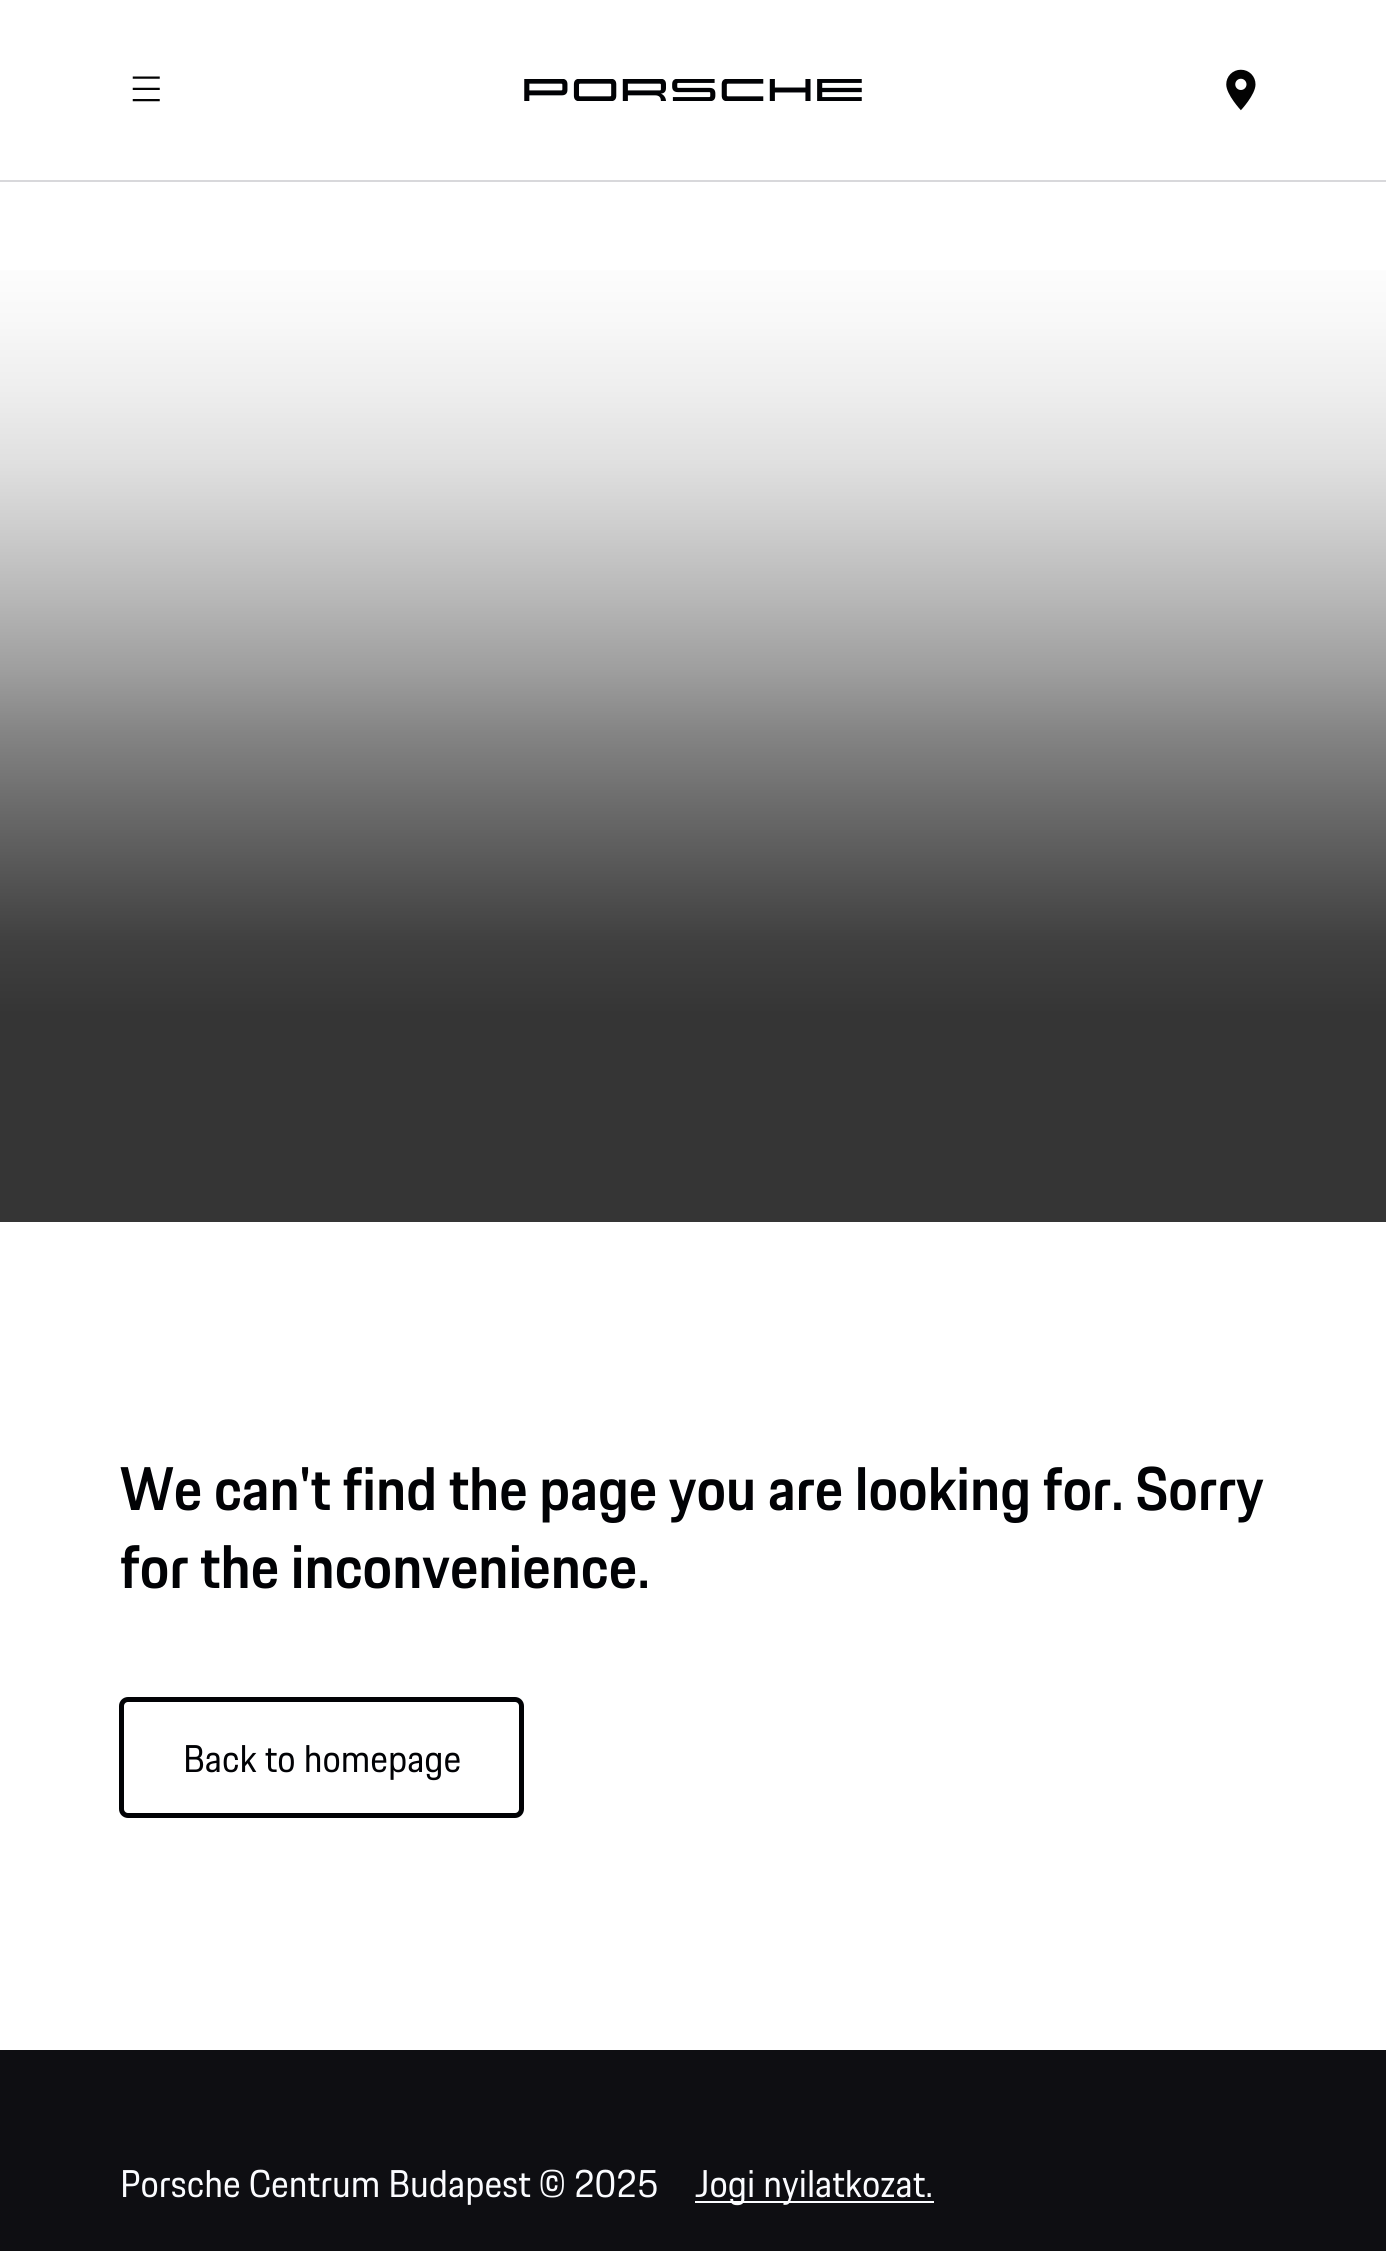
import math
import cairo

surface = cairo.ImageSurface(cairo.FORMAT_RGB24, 1386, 2251)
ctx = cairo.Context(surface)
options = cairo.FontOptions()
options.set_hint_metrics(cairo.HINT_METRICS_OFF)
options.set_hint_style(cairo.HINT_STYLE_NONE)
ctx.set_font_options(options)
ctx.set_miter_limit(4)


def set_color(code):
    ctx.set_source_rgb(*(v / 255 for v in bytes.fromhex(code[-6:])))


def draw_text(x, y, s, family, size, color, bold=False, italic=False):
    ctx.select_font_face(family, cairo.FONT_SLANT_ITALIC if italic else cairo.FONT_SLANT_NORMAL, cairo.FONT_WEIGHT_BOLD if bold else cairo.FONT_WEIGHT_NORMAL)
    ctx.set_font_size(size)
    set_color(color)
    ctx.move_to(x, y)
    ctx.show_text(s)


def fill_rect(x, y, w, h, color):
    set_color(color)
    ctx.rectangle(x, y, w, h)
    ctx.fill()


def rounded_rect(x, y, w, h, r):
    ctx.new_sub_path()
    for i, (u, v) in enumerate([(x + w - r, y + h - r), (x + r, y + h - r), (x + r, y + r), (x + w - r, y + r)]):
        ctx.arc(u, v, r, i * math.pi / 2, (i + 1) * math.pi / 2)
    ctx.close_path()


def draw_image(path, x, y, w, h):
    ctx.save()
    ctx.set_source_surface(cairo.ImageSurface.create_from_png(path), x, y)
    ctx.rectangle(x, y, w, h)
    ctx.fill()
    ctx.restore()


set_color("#ffffff")
ctx.paint()
fill_rect(0, 180, 1386, 2, "#d8d8db")
draw_image("assets/img1.png", 132, 76, 28, 26)
draw_image("assets/img2.png", 524, 79, 338, 22)
draw_image("assets/img3.png", 1226, 69, 30, 42)
gradient = cairo.LinearGradient(693, 1222, 693, 182)
gradient.add_color_stop_rgba(0, 0.208, 0.208, 0.208, 1)
gradient.add_color_stop_rgba(0.2, 0.208, 0.208, 0.208, 1)
gradient.add_color_stop_rgba(0.27, 0.251, 0.251, 0.251, 1)
gradient.add_color_stop_rgba(0.33, 0.329, 0.329, 0.329, 1)
gradient.add_color_stop_rgba(0.4, 0.42, 0.42, 0.42, 1)
gradient.add_color_stop_rgba(0.47, 0.518, 0.518, 0.518, 1)
gradient.add_color_stop_rgba(0.53, 0.62, 0.62, 0.62, 1)
gradient.add_color_stop_rgba(0.6, 0.718, 0.718, 0.718, 1)
gradient.add_color_stop_rgba(0.67, 0.808, 0.808, 0.808, 1)
gradient.add_color_stop_rgba(0.73, 0.878, 0.878, 0.878, 1)
gradient.add_color_stop_rgba(0.8, 0.933, 0.933, 0.933, 1)
gradient.add_color_stop_rgba(0.87, 0.973, 0.973, 0.973, 1)
gradient.add_color_stop_rgba(0.93, 0.996, 0.996, 0.996, 1)
gradient.add_color_stop_rgba(1, 1, 1, 1, 1)
ctx.set_source(gradient)
ctx.rectangle(0, 270, 1386, 952)
ctx.fill()
draw_text(120, 1510, "We can't find the page you are looking for. Sorry", "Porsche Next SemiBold", 57.3, "#010205")
draw_text(120, 1588, "for the inconvenience.", "Porsche Next SemiBold", 57.3, "#010205")
rounded_rect(121.5, 1699.5, 400, 116, 6.5)
ctx.set_line_width(5)
ctx.stroke()
draw_text(183, 1772, "Back to homepage", "Porsche Next", 36, "#010205")
fill_rect(0, 2050, 1386, 201, "#0e0e12")
draw_text(120, 2197, "Porsche Centrum Budapest © 2025", "Porsche Next", 36, "#fbfcff")
fill_rect(695, 2201, 239, 2, "#fbfcff")
draw_text(695, 2197, "Jogi nyilatkozat.", "Porsche Next", 36, "#fbfcff")
surface.write_to_png("output.png")
